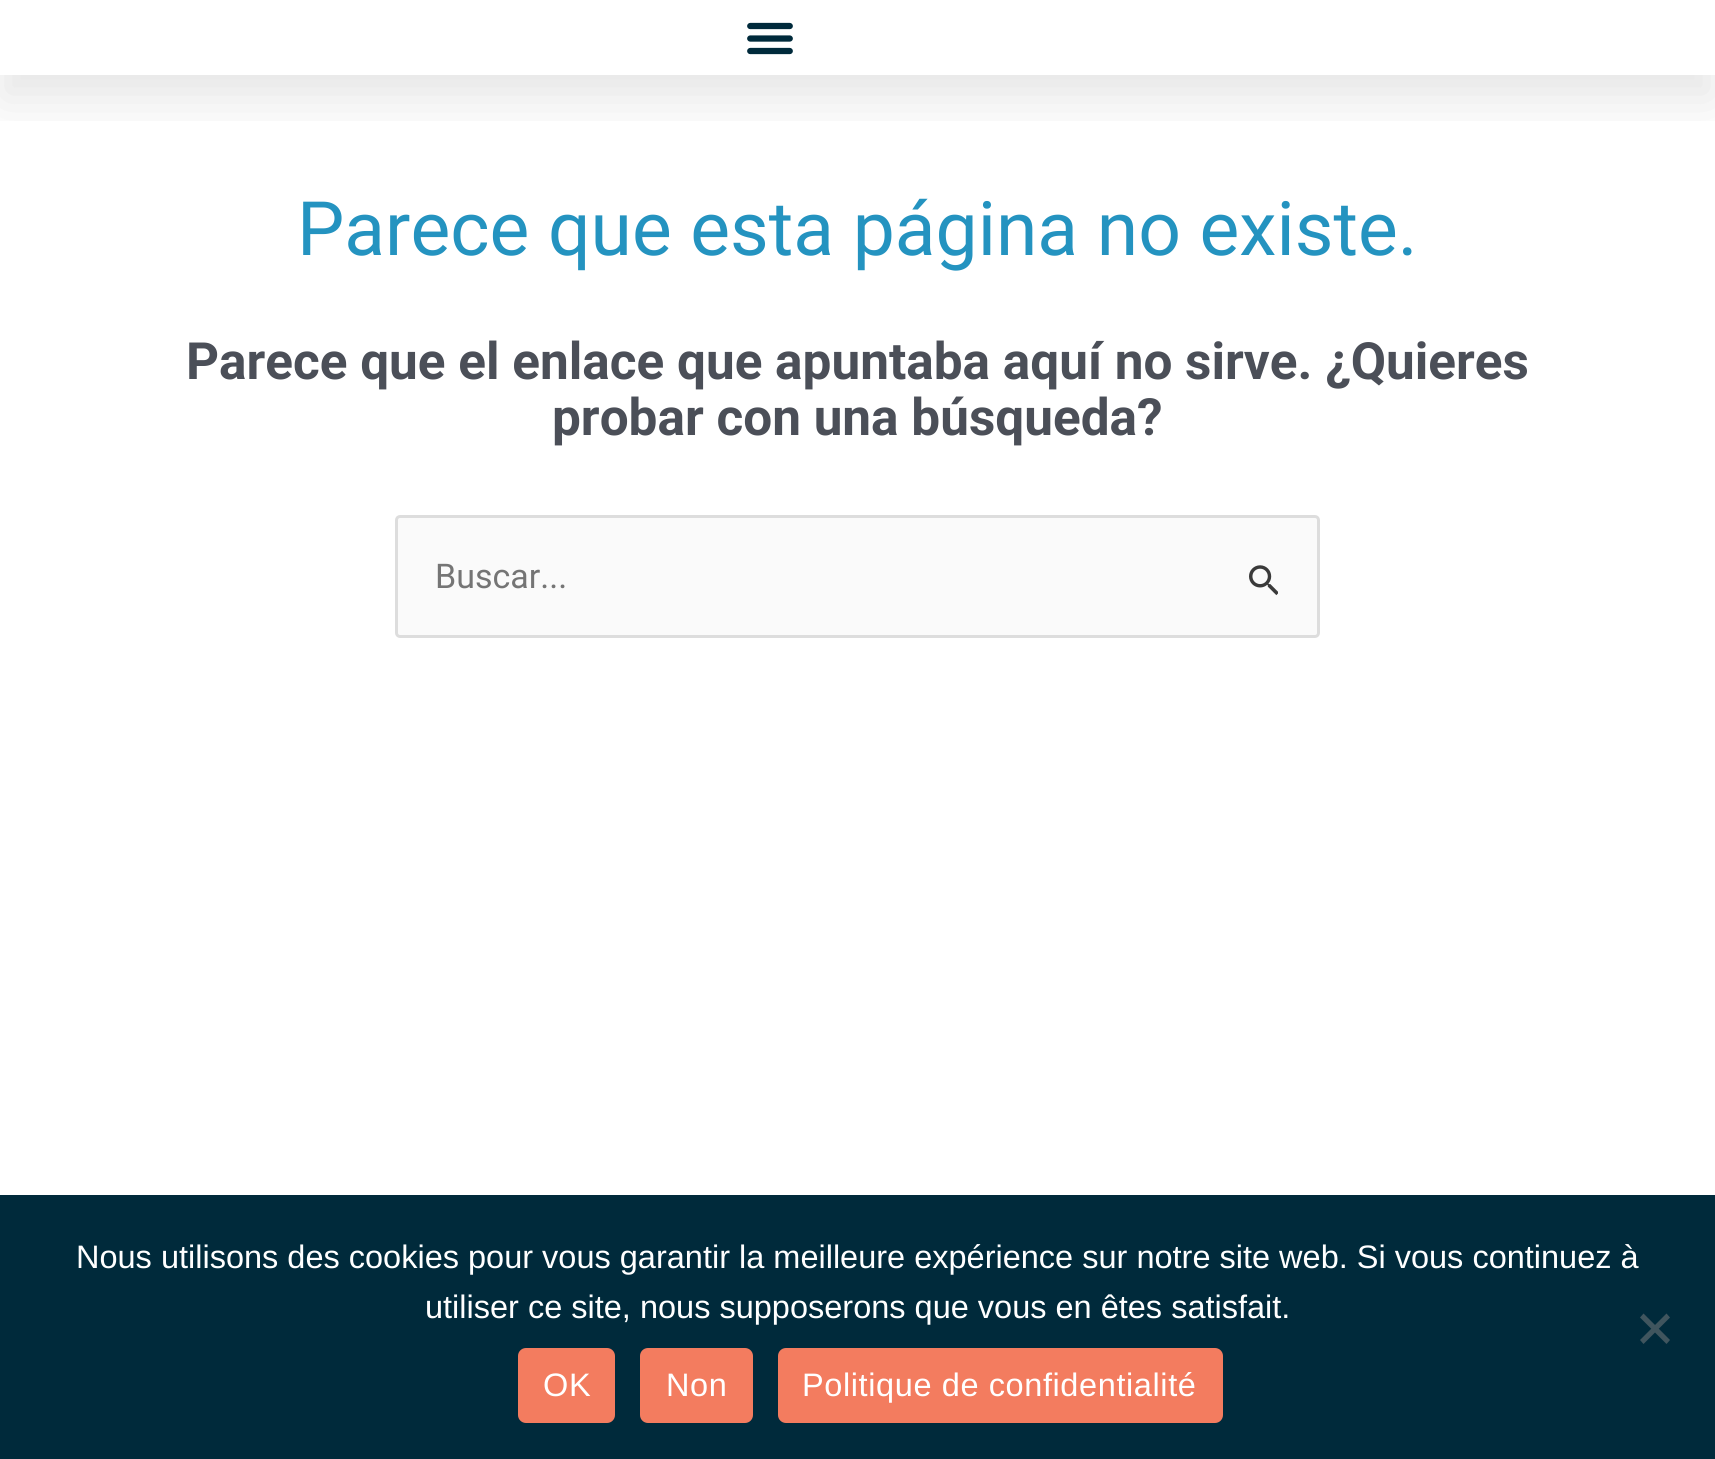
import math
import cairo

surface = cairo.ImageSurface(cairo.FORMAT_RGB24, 1715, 1459)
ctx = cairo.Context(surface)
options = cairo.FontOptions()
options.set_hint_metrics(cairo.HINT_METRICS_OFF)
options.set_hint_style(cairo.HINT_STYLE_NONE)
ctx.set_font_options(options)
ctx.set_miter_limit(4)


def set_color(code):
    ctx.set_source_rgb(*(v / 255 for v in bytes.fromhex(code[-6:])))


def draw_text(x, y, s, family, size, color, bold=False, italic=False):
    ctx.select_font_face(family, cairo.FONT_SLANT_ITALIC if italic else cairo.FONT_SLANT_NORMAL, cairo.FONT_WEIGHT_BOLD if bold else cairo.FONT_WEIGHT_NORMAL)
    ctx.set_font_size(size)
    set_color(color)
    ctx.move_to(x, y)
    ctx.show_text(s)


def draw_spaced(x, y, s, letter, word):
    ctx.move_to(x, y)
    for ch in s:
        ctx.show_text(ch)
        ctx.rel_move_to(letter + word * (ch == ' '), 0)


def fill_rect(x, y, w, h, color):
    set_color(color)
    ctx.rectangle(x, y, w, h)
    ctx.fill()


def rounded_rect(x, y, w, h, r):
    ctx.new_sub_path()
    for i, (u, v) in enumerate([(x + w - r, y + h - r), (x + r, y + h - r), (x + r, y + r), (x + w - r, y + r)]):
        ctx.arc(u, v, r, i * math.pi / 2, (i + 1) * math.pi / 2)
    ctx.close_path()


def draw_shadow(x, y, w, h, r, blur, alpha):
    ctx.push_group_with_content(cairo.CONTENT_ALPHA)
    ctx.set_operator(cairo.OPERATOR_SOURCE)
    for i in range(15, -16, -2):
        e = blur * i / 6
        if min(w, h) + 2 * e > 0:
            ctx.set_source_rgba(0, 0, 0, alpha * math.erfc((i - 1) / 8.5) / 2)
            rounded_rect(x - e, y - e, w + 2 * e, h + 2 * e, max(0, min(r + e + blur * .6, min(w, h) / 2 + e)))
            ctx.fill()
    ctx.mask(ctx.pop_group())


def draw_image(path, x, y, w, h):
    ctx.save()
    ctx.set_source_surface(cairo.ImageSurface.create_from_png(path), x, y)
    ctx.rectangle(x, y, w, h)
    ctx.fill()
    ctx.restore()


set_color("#ffffff")
ctx.paint()
ctx.save()
ctx.rectangle(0, 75, 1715, 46)
ctx.clip()
set_color("#000000")
draw_shadow(0, 25, 1715, 75, 0, 25, 0.1)
ctx.restore()
draw_image("assets/img1.png", 747, 22, 46, 33)
draw_text(297, 255, "Parece que esta página no existe.", "Roboto", 75, "#2493c0")
draw_text(186, 379, "Parece que el enlace que apuntaba aquí no sirve. ¿Quieres", "Roboto", 51.3, "#4b4f58", bold=True)
draw_text(552, 435, "probar con una búsqueda?", "Roboto", 51.3, "#4b4f58", bold=True)
set_color("#fafafa")
rounded_rect(396.5, 516.5, 922, 120, 3.5)
ctx.fill_preserve()
set_color("#dddddd")
ctx.set_line_width(3)
ctx.stroke()
draw_text(435, 588, "Buscar...", "Roboto", 34, "#757575")
draw_image("assets/img2.png", 1249, 565, 29, 31)
fill_rect(0, 1195, 1715, 264, "#002a3b")
draw_text(76, 1268, "Nous utilisons des cookies pour vous garantir la meilleure expérience sur notre site web. Si vous continuez à", "Liberation Sans", 32.5, "#ffffff")
draw_text(425, 1318, "utiliser ce site, nous supposerons que vous en êtes satisfait.", "Liberation Sans", 32.5, "#ffffff")
set_color("#40555e")
ctx.new_path()
ctx.move_to(1666.5, 1313.5)
ctx.line_to(1670, 1317.5)
ctx.line_to(1643.5, 1344)
ctx.line_to(1640, 1340)
ctx.close_path()
ctx.fill()
ctx.new_path()
ctx.move_to(1640, 1317.5)
ctx.line_to(1643.5, 1313.5)
ctx.line_to(1670, 1340)
ctx.line_to(1666.5, 1344)
ctx.close_path()
ctx.fill()
set_color("#f37c5f")
rounded_rect(518, 1348, 97, 75, 8)
ctx.fill()
set_color("#ffffff")
draw_spaced(543, 1396, "OK", 0.6, 0)
set_color("#f37c5f")
rounded_rect(640, 1348, 113, 75, 8)
ctx.fill()
set_color("#ffffff")
draw_spaced(666, 1396, "Non", 0.6, 0)
set_color("#f37c5f")
rounded_rect(778, 1348, 445, 75, 8)
ctx.fill()
set_color("#ffffff")
draw_spaced(802, 1396, "Politique de confidentialité", 0.6, 0)
surface.write_to_png("output.png")
